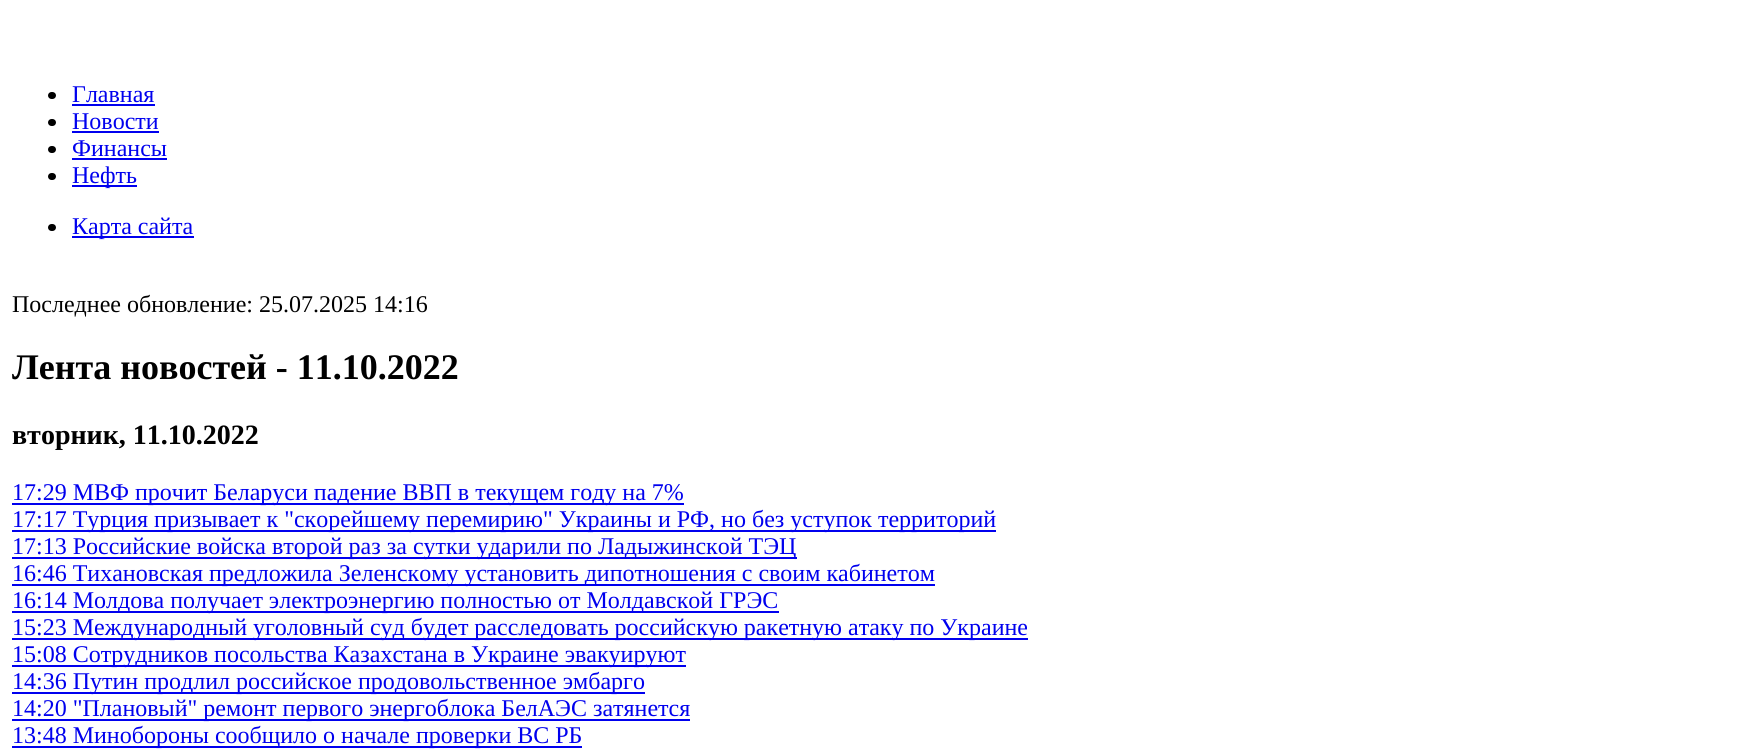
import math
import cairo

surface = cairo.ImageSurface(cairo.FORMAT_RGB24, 1753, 752)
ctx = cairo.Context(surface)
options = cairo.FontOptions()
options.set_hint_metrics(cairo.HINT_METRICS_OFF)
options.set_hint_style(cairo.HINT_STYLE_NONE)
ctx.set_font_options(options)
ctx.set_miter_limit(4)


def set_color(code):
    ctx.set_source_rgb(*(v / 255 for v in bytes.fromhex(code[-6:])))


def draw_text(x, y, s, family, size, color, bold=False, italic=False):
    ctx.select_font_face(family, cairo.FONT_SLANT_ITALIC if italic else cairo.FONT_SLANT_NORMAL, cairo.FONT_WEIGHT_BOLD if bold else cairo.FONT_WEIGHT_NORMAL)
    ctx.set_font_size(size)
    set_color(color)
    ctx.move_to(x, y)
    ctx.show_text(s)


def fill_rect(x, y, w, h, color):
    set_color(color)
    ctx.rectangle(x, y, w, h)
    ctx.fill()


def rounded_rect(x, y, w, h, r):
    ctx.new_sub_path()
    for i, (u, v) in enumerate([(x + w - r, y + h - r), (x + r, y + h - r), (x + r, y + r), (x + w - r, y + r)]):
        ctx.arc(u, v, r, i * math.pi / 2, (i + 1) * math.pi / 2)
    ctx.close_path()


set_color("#ffffff")
ctx.paint()
set_color("#000000")
rounded_rect(48, 92, 8, 7, 3.5)
ctx.fill()
draw_text(72, 102, "Главная", "Liberation Serif", 24, "#0000ee")
fill_rect(72, 104, 83, 2, "#0000ee")
set_color("#000000")
rounded_rect(48, 119, 8, 7, 3.5)
ctx.fill()
draw_text(72, 129, "Новости", "Liberation Serif", 24, "#0000ee")
fill_rect(72, 131, 87, 2, "#0000ee")
set_color("#000000")
rounded_rect(48, 146, 8, 7, 3.5)
ctx.fill()
draw_text(72, 156, "Финансы", "Liberation Serif", 24, "#0000ee")
fill_rect(72, 158, 95, 2, "#0000ee")
set_color("#000000")
rounded_rect(48, 173, 8, 7, 3.5)
ctx.fill()
fill_rect(72, 185, 65, 2, "#0000ee")
draw_text(72, 183, "Нефть", "Liberation Serif", 24, "#0000ee")
set_color("#000000")
rounded_rect(48, 224, 8, 7, 3.5)
ctx.fill()
fill_rect(72, 236, 122, 2, "#0000ee")
draw_text(72, 234, "Карта сайта", "Liberation Serif", 24, "#0000ee")
draw_text(12, 312, "Последнее обновление: 25.07.2025 14:16", "Liberation Serif", 24, "#000000")
draw_text(12, 379, "Лента новостей - 11.10.2022", "Liberation Serif", 36, "#000000", bold=True)
draw_text(12, 444, "вторник, 11.10.2022", "Liberation Serif", 28, "#000000", bold=True)
fill_rect(12, 503, 672, 2, "#0000ee")
draw_text(12, 500, "17:29 МВФ прочит Беларуси падение ВВП в текущем году на 7%", "Liberation Serif", 24, "#0000ee")
fill_rect(12, 530, 984, 2, "#0000ee")
draw_text(12, 527, "17:17 Турция призывает к \"скорейшему перемирию\" Украины и РФ, но без уступок территорий", "Liberation Serif", 24, "#0000ee")
fill_rect(12, 557, 785, 2, "#0000ee")
draw_text(12, 554, "17:13 Российские войска второй раз за сутки ударили по Ладыжинской ТЭЦ", "Liberation Serif", 24, "#0000ee")
fill_rect(12, 584, 923, 2, "#0000ee")
draw_text(12, 581, "16:46 Тихановская предложила Зеленскому установить дипотношения с своим кабинетом", "Liberation Serif", 24, "#0000ee")
fill_rect(12, 611, 767, 2, "#0000ee")
draw_text(12, 608, "16:14 Молдова получает электроэнергию полностью от Молдавской ГРЭС", "Liberation Serif", 24, "#0000ee")
fill_rect(12, 638, 1016, 2, "#0000ee")
draw_text(12, 635, "15:23 Международный уголовный суд будет расследовать российскую ракетную атаку по Украине", "Liberation Serif", 24, "#0000ee")
fill_rect(12, 665, 674, 2, "#0000ee")
draw_text(12, 662, "15:08 Сотрудников посольства Казахстана в Украине эвакуируют", "Liberation Serif", 24, "#0000ee")
fill_rect(12, 692, 633, 2, "#0000ee")
draw_text(12, 689, "14:36 Путин продлил российское продовольственное эмбарго", "Liberation Serif", 24, "#0000ee")
fill_rect(12, 719, 678, 2, "#0000ee")
draw_text(12, 716, "14:20 \"Плановый\" ремонт первого энергоблока БелАЭС затянется", "Liberation Serif", 24, "#0000ee")
fill_rect(12, 746, 570, 2, "#0000ee")
draw_text(12, 743, "13:48 Минобороны сообщило о начале проверки ВС РБ", "Liberation Serif", 24, "#0000ee")
surface.write_to_png("output.png")
